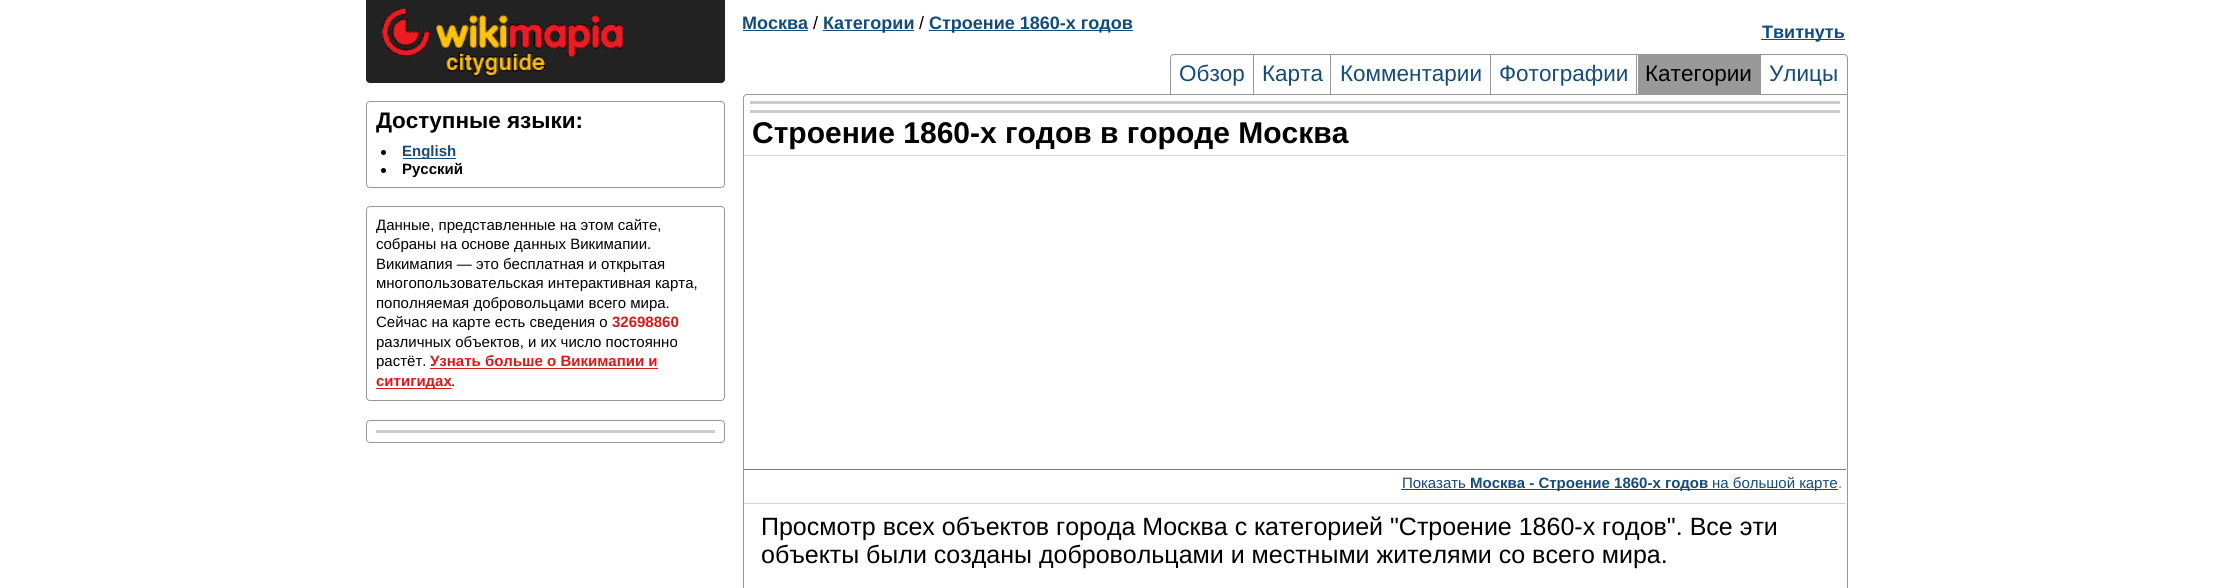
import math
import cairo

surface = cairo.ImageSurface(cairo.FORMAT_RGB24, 2214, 588)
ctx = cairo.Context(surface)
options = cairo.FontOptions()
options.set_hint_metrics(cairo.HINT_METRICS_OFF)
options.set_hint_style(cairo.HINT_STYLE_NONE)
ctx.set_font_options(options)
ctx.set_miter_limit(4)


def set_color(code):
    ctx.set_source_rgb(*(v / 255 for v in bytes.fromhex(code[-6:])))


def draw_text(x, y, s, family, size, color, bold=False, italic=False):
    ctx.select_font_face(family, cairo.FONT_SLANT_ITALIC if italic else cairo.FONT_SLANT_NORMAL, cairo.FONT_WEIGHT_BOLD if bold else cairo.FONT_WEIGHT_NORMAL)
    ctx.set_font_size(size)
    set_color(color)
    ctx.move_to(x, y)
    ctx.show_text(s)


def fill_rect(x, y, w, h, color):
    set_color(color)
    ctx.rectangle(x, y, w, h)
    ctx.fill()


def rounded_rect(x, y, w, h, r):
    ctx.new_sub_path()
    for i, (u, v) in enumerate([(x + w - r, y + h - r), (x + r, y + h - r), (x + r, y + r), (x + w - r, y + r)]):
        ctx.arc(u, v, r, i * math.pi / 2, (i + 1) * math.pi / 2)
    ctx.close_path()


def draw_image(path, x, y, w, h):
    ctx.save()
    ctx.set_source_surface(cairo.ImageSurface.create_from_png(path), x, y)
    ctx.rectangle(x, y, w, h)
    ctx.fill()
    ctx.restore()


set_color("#ffffff")
ctx.paint()
draw_text(742, 29, "Москва", "Liberation Sans", 18, "#144b78", bold=True)
fill_rect(743, 30, 65, 1, "#144b78")
draw_text(813, 29, "/", "Liberation Sans", 18, "#000000")
fill_rect(823, 30, 91, 1, "#144b78")
draw_text(823, 29, "Категории", "Liberation Sans", 18, "#144b78", bold=True)
draw_text(919, 29, "/", "Liberation Sans", 18, "#000000")
fill_rect(929, 30, 204, 1, "#144b78")
draw_text(929, 29, "Строение 1860-х годов", "Liberation Sans", 18, "#144b78", bold=True)
fill_rect(1761, 39, 84, 1, "#144b78")
draw_text(1762, 38, "Твитнуть", "Liberation Sans", 18, "#144b78", bold=True)
ctx.new_path()
ctx.move_to(1174, 54.5)
ctx.line_to(1844, 54.5)
ctx.curve_to(1846, 54.5, 1847.5, 56, 1847.5, 58)
ctx.line_to(1847.5, 94.5)
ctx.line_to(1170.5, 94.5)
ctx.line_to(1170.5, 58)
ctx.curve_to(1170.5, 56, 1172, 54.5, 1174, 54.5)
ctx.close_path()
set_color("#999999")
ctx.set_line_width(1)
ctx.stroke()
fill_rect(1253, 55, 1, 39, "#999999")
draw_text(1179, 81, "Обзор", "Liberation Sans", 22.5, "#144b78")
fill_rect(1330, 55, 1, 39, "#999999")
draw_text(1262, 81, "Карта", "Liberation Sans", 22.5, "#144b78")
fill_rect(1490, 55, 1, 39, "#999999")
draw_text(1340, 81, "Комментарии", "Liberation Sans", 22.5, "#144b78")
fill_rect(1636, 55, 1, 39, "#999999")
draw_text(1499, 81, "Фотографии", "Liberation Sans", 22.5, "#144b78")
fill_rect(1638, 55, 123, 39, "#999999")
draw_text(1645, 81, "Категории", "Liberation Sans", 22.5, "#000000")
draw_text(1769, 81, "Улицы", "Liberation Sans", 22.5, "#144b78")
set_color("#222222")
ctx.new_path()
ctx.move_to(366.5, 0.5)
ctx.line_to(724.5, 0.5)
ctx.line_to(724.5, 79)
ctx.curve_to(724.5, 81, 723, 82.5, 721, 82.5)
ctx.line_to(370, 82.5)
ctx.curve_to(368, 82.5, 366.5, 81, 366.5, 79)
ctx.close_path()
ctx.fill_preserve()
ctx.stroke()
draw_image("assets/img1.png", 382, 8, 241, 69)
rounded_rect(366.5, 101.5, 358, 86, 3.5)
set_color("#999999")
ctx.stroke()
draw_text(376, 128, "Доступные языки:", "Liberation Sans", 22.5, "#000000", bold=True)
ctx.new_path()
ctx.arc(383.5, 152.5, 2.5, 0, 2 * math.pi)
ctx.fill()
fill_rect(403, 158, 53, 1, "#144b78")
draw_text(402, 156, "English", "Liberation Sans", 15, "#144b78", bold=True)
set_color("#000000")
ctx.new_path()
ctx.arc(383.5, 170.5, 2.5, 0, 2 * math.pi)
ctx.fill()
draw_text(402, 174, "Русский", "Liberation Sans", 15, "#000000", bold=True)
rounded_rect(366.5, 206.5, 358, 194, 3.5)
set_color("#999999")
ctx.stroke()
draw_text(376, 230, "Данные, представленные на этом сайте,", "Liberation Sans", 15, "#000000")
draw_text(376, 249, "собраны на основе данных Викимапии.", "Liberation Sans", 15, "#000000")
draw_text(376, 269, "Викимапия — это бесплатная и открытая", "Liberation Sans", 15, "#000000")
draw_text(376, 288, "многопользовательская интерактивная карта,", "Liberation Sans", 15, "#000000")
draw_text(376, 308, "пополняемая добровольцами всего мира.", "Liberation Sans", 15, "#000000")
draw_text(376, 327, "Сейчас на карте есть сведения о", "Liberation Sans", 15, "#000000")
draw_text(612, 327, "32698860", "Liberation Sans", 15, "#d71a1a", bold=True)
draw_text(376, 347, "различных объектов, и их число постоянно", "Liberation Sans", 15, "#000000")
draw_text(376, 366, "растёт.", "Liberation Sans", 15, "#000000")
draw_text(430, 366, "Узнать больше о Викимапии и", "Liberation Sans", 15, "#d71a1a", bold=True)
fill_rect(430, 368, 228, 1, "#d71a1a")
fill_rect(376, 388, 75, 1, "#d71a1a")
draw_text(376, 386, "ситигидах", "Liberation Sans", 15, "#d71a1a", bold=True)
draw_text(451, 386, ".", "Liberation Sans", 15, "#000000")
rounded_rect(366.5, 420.5, 358, 22, 3.5)
set_color("#999999")
ctx.stroke()
fill_rect(376, 430, 339, 3, "#cccccc")
ctx.new_path()
ctx.move_to(747, 94.5)
ctx.line_to(1847.5, 94.5)
ctx.line_to(1847.5, 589)
ctx.curve_to(1847.5, 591, 1846, 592.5, 1844, 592.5)
ctx.line_to(747, 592.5)
ctx.curve_to(745, 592.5, 743.5, 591, 743.5, 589)
ctx.line_to(743.5, 98)
ctx.curve_to(743.5, 96, 745, 94.5, 747, 94.5)
ctx.close_path()
set_color("#999999")
ctx.stroke()
fill_rect(750, 101, 1090, 3, "#cccccc")
fill_rect(750, 110, 1090, 3, "#cccccc")
draw_text(752, 143, "Строение 1860-х годов в городе Москва", "Liberation Sans", 30, "#000000", bold=True)
fill_rect(744, 155, 1102, 1, "#d5d5d5")
fill_rect(744, 469, 1102, 1, "#777777")
draw_text(1402, 488, "Показать", "Liberation Sans", 15, "#144b78")
fill_rect(1401, 489, 437, 1, "#144b78")
draw_text(1470, 488, "Москва - Строение 1860-х годов", "Liberation Sans", 15, "#144b78", bold=True)
draw_text(1712, 488, "на большой карте", "Liberation Sans", 15, "#144b78")
draw_text(1838, 488, ".", "Liberation Sans", 15, "#777777")
fill_rect(744, 503, 1102, 1, "#d5d5d5")
draw_text(761, 535, "Просмотр всех объектов города Москва с категорией \"Строение 1860-х годов\". Все эти", "Liberation Sans", 25, "#000000")
draw_text(761, 563, "объекты были созданы добровольцами и местными жителями со всего мира.", "Liberation Sans", 25, "#000000")
surface.write_to_png("output.png")
